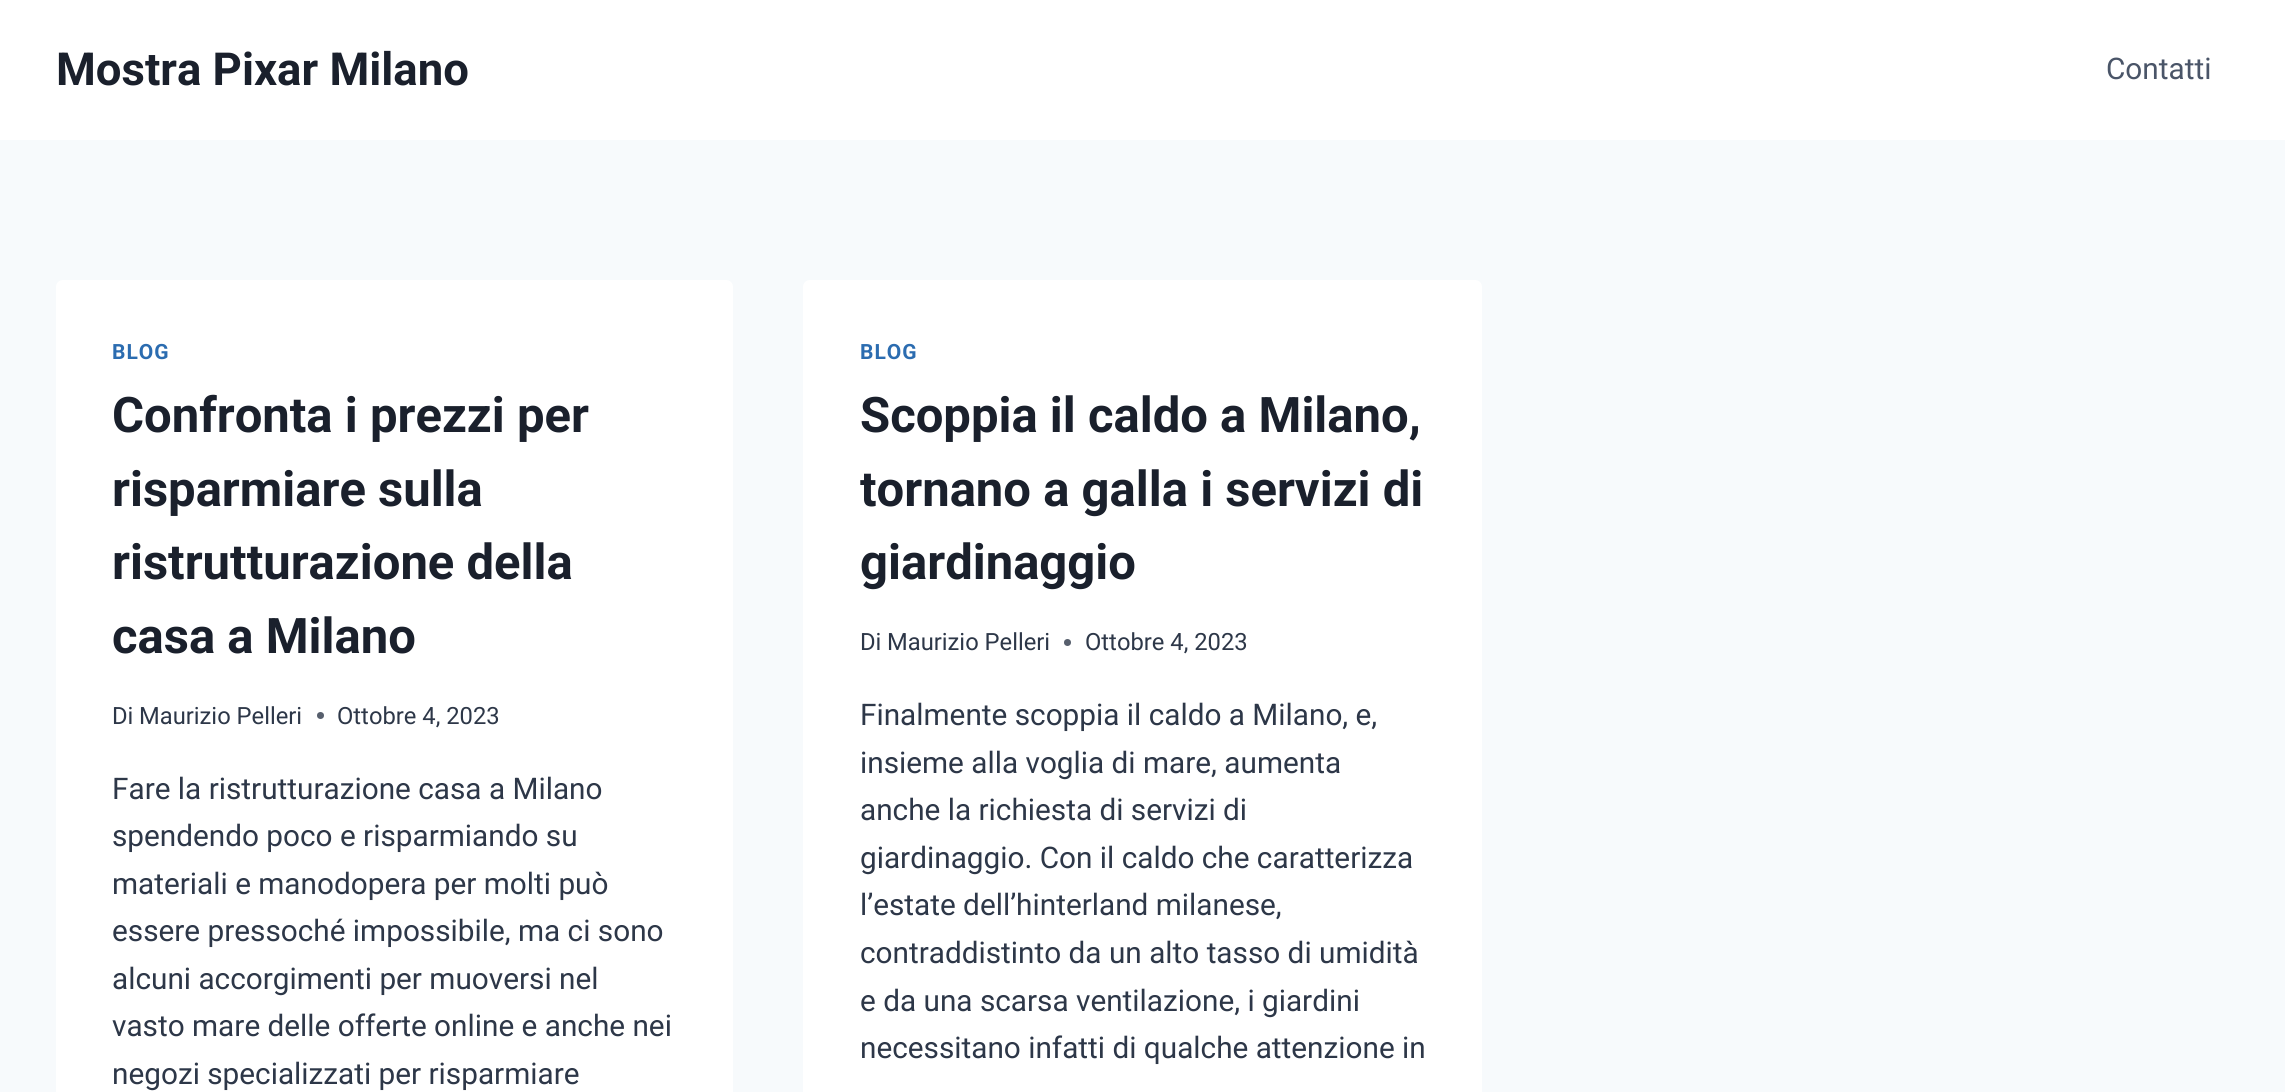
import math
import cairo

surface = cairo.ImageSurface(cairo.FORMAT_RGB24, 2285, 1092)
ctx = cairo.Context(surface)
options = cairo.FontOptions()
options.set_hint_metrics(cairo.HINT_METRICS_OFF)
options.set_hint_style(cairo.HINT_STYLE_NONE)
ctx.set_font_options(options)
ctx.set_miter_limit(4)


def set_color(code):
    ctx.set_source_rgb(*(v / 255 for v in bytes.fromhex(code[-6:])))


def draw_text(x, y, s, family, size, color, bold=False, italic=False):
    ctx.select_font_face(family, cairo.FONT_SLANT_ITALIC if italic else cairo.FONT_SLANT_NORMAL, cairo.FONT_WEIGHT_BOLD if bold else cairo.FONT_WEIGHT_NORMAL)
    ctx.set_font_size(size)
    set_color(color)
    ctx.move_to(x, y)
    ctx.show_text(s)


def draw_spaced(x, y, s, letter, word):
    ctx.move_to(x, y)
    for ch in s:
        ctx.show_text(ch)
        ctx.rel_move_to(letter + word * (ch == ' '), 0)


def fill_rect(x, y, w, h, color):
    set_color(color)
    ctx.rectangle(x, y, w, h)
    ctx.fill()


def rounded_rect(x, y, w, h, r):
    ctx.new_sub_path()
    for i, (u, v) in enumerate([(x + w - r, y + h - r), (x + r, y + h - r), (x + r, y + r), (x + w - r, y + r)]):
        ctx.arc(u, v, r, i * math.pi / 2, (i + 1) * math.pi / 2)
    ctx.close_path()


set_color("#f7fafc")
ctx.paint()
fill_rect(0, 0, 2285, 140, "#ffffff")
draw_text(56, 85, "Mostra Pixar Milano", "Roboto", 45.5, "#1a202c", bold=True)
draw_text(2106, 79, "Contatti", "Roboto", 29.75, "#4a5568")
set_color("#ffffff")
rounded_rect(56, 280, 677, 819, 7)
ctx.fill()
ctx.select_font_face("Roboto", cairo.FONT_SLANT_NORMAL, cairo.FONT_WEIGHT_BOLD)
ctx.set_font_size(21)
set_color("#2b6cb0")
draw_spaced(112, 359, "BLOG", 1, 0)
draw_text(112, 432, "Confronta i prezzi per", "Roboto", 49, "#1a202c", bold=True)
draw_text(112, 506, "risparmiare sulla", "Roboto", 49, "#1a202c", bold=True)
draw_text(112, 579, "ristrutturazione della", "Roboto", 49, "#1a202c", bold=True)
draw_text(112, 653, "casa a Milano", "Roboto", 49, "#1a202c", bold=True)
draw_text(112, 724, "Di", "Roboto", 23.75, "#2d3748")
draw_text(139, 724, "Maurizio Pelleri", "Roboto", 23.75, "#2d3748")
set_color("#575f6d")
ctx.new_path()
ctx.arc(320.5, 715.5, 3.5, 0, 2 * math.pi)
ctx.fill()
draw_text(337, 724, "Ottobre 4, 2023", "Roboto", 23.75, "#2d3748")
draw_text(112, 799, "Fare la ristrutturazione casa a Milano", "Roboto", 29.75, "#2d3748")
draw_text(112, 846, "spendendo poco e risparmiando su", "Roboto", 29.75, "#2d3748")
draw_text(112, 894, "materiali e manodopera per molti può", "Roboto", 29.75, "#2d3748")
draw_text(112, 941, "essere pressoché impossibile, ma ci sono", "Roboto", 29.75, "#2d3748")
draw_text(112, 989, "alcuni accorgimenti per muoversi nel", "Roboto", 29.75, "#2d3748")
draw_text(112, 1036, "vasto mare delle offerte online e anche nei", "Roboto", 29.75, "#2d3748")
draw_text(112, 1084, "negozi specializzati per risparmiare", "Roboto", 29.75, "#2d3748")
set_color("#ffffff")
rounded_rect(803, 280, 679, 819, 7)
ctx.fill()
ctx.select_font_face("Roboto", cairo.FONT_SLANT_NORMAL, cairo.FONT_WEIGHT_BOLD)
ctx.set_font_size(21)
set_color("#2b6cb0")
draw_spaced(860, 359, "BLOG", 1, 0)
draw_text(860, 432, "Scoppia il caldo a Milano,", "Roboto", 49, "#1a202c", bold=True)
draw_text(860, 506, "tornano a galla i servizi di", "Roboto", 49, "#1a202c", bold=True)
draw_text(860, 579, "giardinaggio", "Roboto", 49, "#1a202c", bold=True)
draw_text(860, 650, "Di", "Roboto", 23.75, "#2d3748")
draw_text(887, 650, "Maurizio Pelleri", "Roboto", 23.75, "#2d3748")
set_color("#575f6d")
ctx.new_path()
ctx.arc(1067.5, 642.5, 3.5, 0, 2 * math.pi)
ctx.fill()
draw_text(1085, 650, "Ottobre 4, 2023", "Roboto", 23.75, "#2d3748")
draw_text(860, 725, "Finalmente scoppia il caldo a Milano, e,", "Roboto", 29.75, "#2d3748")
draw_text(860, 773, "insieme alla voglia di mare, aumenta", "Roboto", 29.75, "#2d3748")
draw_text(860, 820, "anche la richiesta di servizi di", "Roboto", 29.75, "#2d3748")
draw_text(860, 868, "giardinaggio. Con il caldo che caratterizza", "Roboto", 29.75, "#2d3748")
draw_text(860, 915, "l’estate dell’hinterland milanese,", "Roboto", 29.75, "#2d3748")
draw_text(860, 963, "contraddistinto da un alto tasso di umidità", "Roboto", 29.75, "#2d3748")
draw_text(860, 1011, "e da una scarsa ventilazione, i giardini", "Roboto", 29.75, "#2d3748")
draw_text(860, 1058, "necessitano infatti di qualche attenzione in", "Roboto", 29.75, "#2d3748")
surface.write_to_png("output.png")
